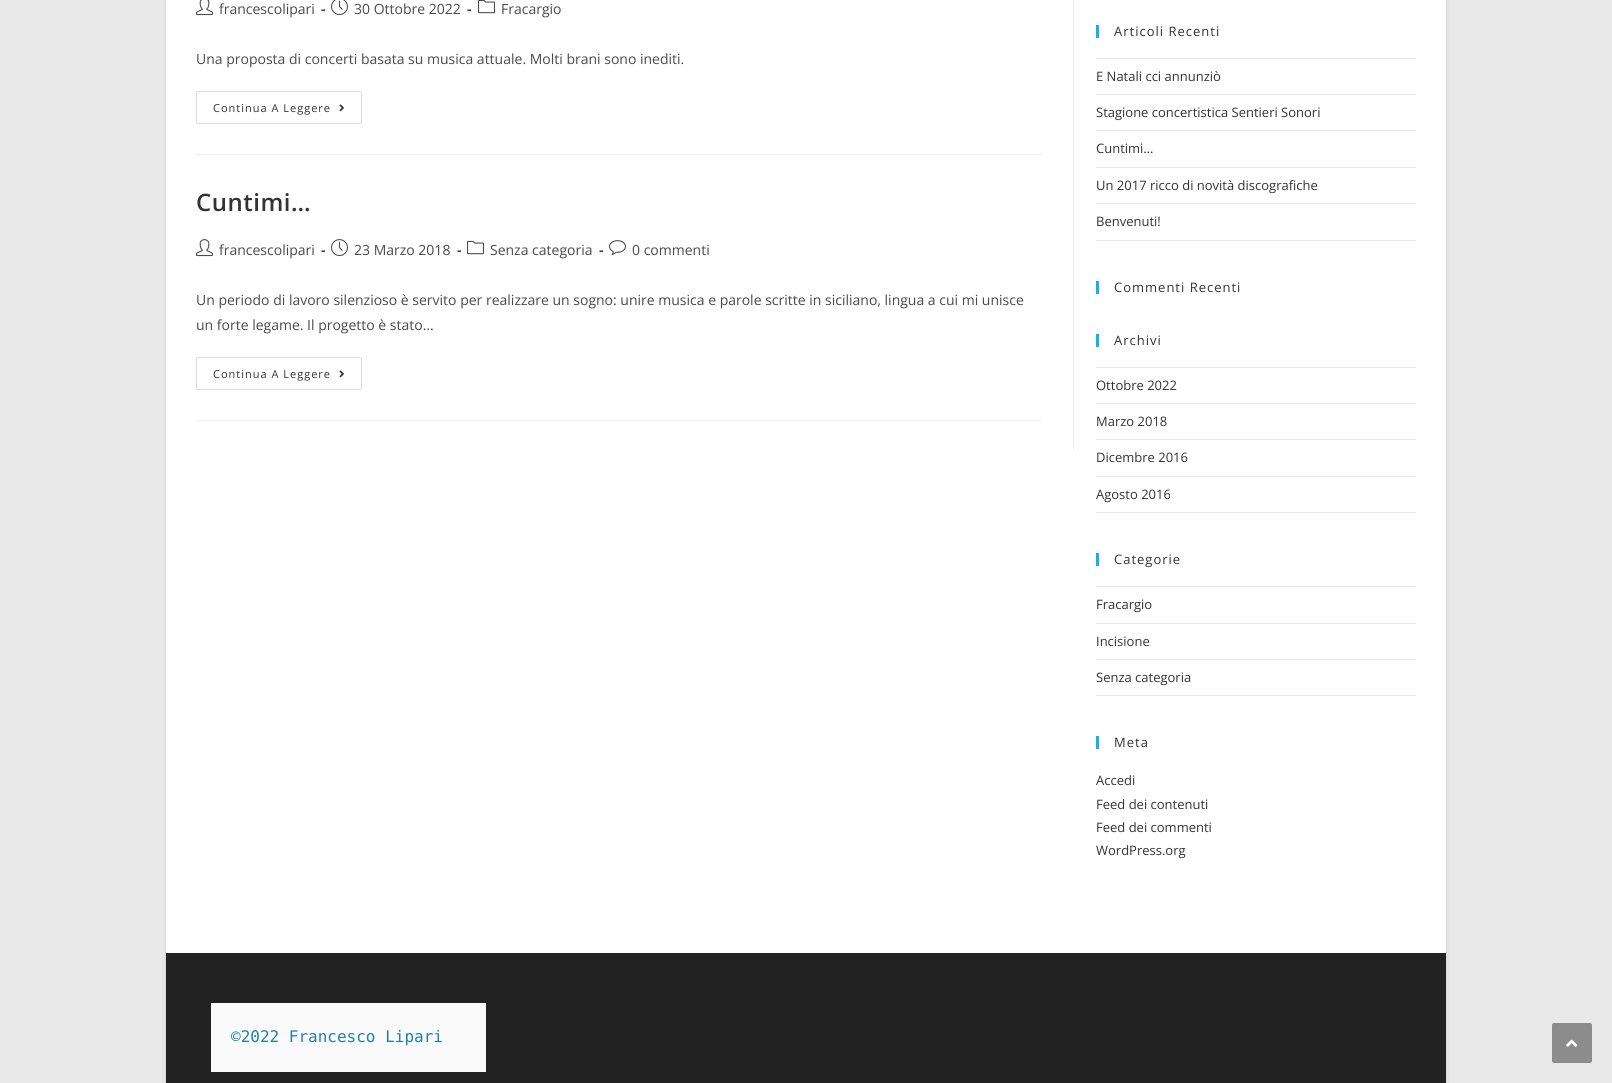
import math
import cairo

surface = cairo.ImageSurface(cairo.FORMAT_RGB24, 1612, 1083)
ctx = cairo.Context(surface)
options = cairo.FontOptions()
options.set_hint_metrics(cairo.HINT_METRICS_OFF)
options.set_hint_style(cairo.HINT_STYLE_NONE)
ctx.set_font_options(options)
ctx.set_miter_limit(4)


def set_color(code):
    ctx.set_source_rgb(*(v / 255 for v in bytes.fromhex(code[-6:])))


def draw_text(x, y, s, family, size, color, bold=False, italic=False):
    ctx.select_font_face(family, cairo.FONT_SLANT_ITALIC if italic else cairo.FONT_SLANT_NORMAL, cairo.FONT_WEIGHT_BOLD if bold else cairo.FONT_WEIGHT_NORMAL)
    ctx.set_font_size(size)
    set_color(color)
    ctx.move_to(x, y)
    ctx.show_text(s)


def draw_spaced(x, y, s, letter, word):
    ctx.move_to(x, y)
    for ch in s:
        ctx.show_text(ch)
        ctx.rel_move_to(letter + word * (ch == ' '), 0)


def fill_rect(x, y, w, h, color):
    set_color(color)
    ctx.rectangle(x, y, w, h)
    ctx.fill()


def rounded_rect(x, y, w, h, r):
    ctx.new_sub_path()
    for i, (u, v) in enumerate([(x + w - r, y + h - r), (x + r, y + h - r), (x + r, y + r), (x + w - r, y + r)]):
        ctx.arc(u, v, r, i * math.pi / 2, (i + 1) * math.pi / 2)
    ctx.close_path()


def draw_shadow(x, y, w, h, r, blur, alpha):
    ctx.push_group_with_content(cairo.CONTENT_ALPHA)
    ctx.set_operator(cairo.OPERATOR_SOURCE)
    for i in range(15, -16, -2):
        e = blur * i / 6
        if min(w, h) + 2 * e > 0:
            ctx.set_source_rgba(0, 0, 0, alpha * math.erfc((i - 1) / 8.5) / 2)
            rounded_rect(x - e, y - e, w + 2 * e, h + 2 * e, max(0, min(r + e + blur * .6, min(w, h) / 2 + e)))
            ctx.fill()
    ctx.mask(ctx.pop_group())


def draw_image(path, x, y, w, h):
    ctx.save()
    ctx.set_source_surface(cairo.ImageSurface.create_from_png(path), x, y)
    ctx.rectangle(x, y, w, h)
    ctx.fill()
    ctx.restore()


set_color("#e9e9e9")
ctx.paint()
set_color("#000000")
draw_shadow(166, -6, 1280, 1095, 0, 2, 0.15)
fill_rect(166, 0, 1280, 953, "#ffffff")
fill_rect(1073, 0, 1, 451, "#f1f1f1")
fill_rect(196, 154, 847, 1, "#f1f1f1")
draw_image("assets/img1.png", 196, 0, 17, 16)
draw_text(219, 14, "francescolipari", "Open Sans", 14, "#4a4a4a")
draw_text(321, 14, "-", "Open Sans", 14, "#4a4a4a", bold=True)
draw_image("assets/img2.png", 331, 0, 17, 16)
draw_text(354, 14, "30 Ottobre 2022", "Open Sans", 14, "#4a4a4a")
draw_text(467, 14, "-", "Open Sans", 14, "#4a4a4a", bold=True)
draw_image("assets/img3.png", 478, 0, 17, 14)
draw_text(501, 14, "Fracargio", "Open Sans", 14, "#4a4a4a")
draw_text(196, 64, "Una proposta di concerti basata su musica attuale. Molti brani sono inediti.", "Open Sans", 14, "#4a4a4a")
rounded_rect(196.5, 91.5, 165, 32, 1.5)
set_color("#dddddd")
ctx.set_line_width(1)
ctx.stroke()
ctx.set_font_size(11)
set_color("#333333")
draw_spaced(213, 112, "Continua A Leggere", 1, 0)
draw_image("assets/img4.png", 339, 104, 5, 8)
fill_rect(196, 420, 847, 1, "#f1f1f1")
ctx.select_font_face("Open Sans SemiBold")
ctx.set_font_size(24)
set_color("#333333")
draw_spaced(196, 211, "Cuntimi…", 0.5, 0)
draw_image("assets/img5.png", 196, 239, 17, 18)
draw_text(219, 255, "francescolipari", "Open Sans", 14, "#4a4a4a")
draw_text(321, 255, "-", "Open Sans", 14, "#4a4a4a", bold=True)
draw_image("assets/img6.png", 331, 239, 17, 18)
draw_text(354, 255, "23 Marzo 2018", "Open Sans", 14, "#4a4a4a")
draw_text(457, 255, "-", "Open Sans", 14, "#4a4a4a", bold=True)
draw_image("assets/img7.png", 467, 240, 17, 15)
draw_text(490, 255, "Senza categoria", "Open Sans", 14, "#4a4a4a")
draw_text(599, 255, "-", "Open Sans", 14, "#4a4a4a", bold=True)
draw_image("assets/img8.png", 609, 240, 17, 15)
draw_text(632, 255, "0 commenti", "Open Sans", 14, "#4a4a4a")
draw_text(196, 305, "Un periodo di lavoro silenzioso è servito per realizzare un sogno: unire musica e parole scritte in siciliano, lingua a cui mi unisce", "Open Sans", 14, "#4a4a4a")
draw_text(196, 330, "un forte legame. Il progetto è stato…", "Open Sans", 14, "#4a4a4a")
rounded_rect(196.5, 357.5, 165, 32, 1.5)
set_color("#dddddd")
ctx.stroke()
ctx.set_font_size(11)
set_color("#333333")
draw_spaced(213, 378, "Continua A Leggere", 1, 0)
draw_image("assets/img4.png", 339, 370, 5, 8)
fill_rect(1096, 25, 3, 13, "#13aff0")
ctx.set_font_size(13)
set_color("#333333")
draw_spaced(1114, 36, "Articoli Recenti", 1, 0)
fill_rect(1096, 58, 320, 1, "#e9e9e9")
fill_rect(1096, 94, 320, 1, "#e9e9e9")
draw_text(1096, 81, "E Natali cci annunziò", "Open Sans", 13, "#333333")
fill_rect(1096, 130, 320, 1, "#e9e9e9")
draw_text(1096, 117, "Stagione concertistica Sentieri Sonori", "Open Sans", 13, "#333333")
fill_rect(1096, 167, 320, 1, "#e9e9e9")
draw_text(1096, 153, "Cuntimi…", "Open Sans", 13, "#333333")
fill_rect(1096, 203, 320, 1, "#e9e9e9")
draw_text(1096, 190, "Un 2017 ricco di novità discografiche", "Open Sans", 13, "#333333")
fill_rect(1096, 240, 320, 1, "#e9e9e9")
draw_text(1096, 226, "Benvenuti!", "Open Sans", 13, "#333333")
fill_rect(1096, 281, 3, 13, "#13aff0")
set_color("#333333")
draw_spaced(1114, 292, "Commenti Recenti", 1, 0)
fill_rect(1096, 334, 3, 13, "#13aff0")
set_color("#333333")
draw_spaced(1114, 345, "Archivi", 1, 0)
fill_rect(1096, 367, 320, 1, "#e9e9e9")
fill_rect(1096, 403, 320, 1, "#e9e9e9")
draw_text(1096, 390, "Ottobre 2022", "Open Sans", 13, "#333333")
fill_rect(1096, 439, 320, 1, "#e9e9e9")
draw_text(1096, 426, "Marzo 2018", "Open Sans", 13, "#333333")
fill_rect(1096, 476, 320, 1, "#e9e9e9")
draw_text(1096, 462, "Dicembre 2016", "Open Sans", 13, "#333333")
fill_rect(1096, 512, 320, 1, "#e9e9e9")
draw_text(1096, 499, "Agosto 2016", "Open Sans", 13, "#333333")
fill_rect(1096, 553, 3, 13, "#13aff0")
set_color("#333333")
draw_spaced(1114, 564, "Categorie", 1, 0)
fill_rect(1096, 586, 320, 1, "#e9e9e9")
fill_rect(1096, 623, 320, 1, "#e9e9e9")
draw_text(1096, 609, "Fracargio", "Open Sans", 13, "#333333")
fill_rect(1096, 659, 320, 1, "#e9e9e9")
draw_text(1096, 646, "Incisione", "Open Sans", 13, "#333333")
fill_rect(1096, 695, 320, 1, "#e9e9e9")
draw_text(1096, 682, "Senza categoria", "Open Sans", 13, "#333333")
fill_rect(1096, 736, 3, 13, "#13aff0")
set_color("#333333")
draw_spaced(1114, 747, "Meta", 1, 0)
draw_text(1096, 785, "Accedi", "Open Sans", 13, "#333333")
draw_text(1096, 809, "Feed dei contenuti", "Open Sans", 13, "#333333")
draw_text(1096, 832, "Feed dei commenti", "Open Sans", 13, "#333333")
draw_text(1096, 855, "WordPress.org", "Open Sans", 13, "#333333")
fill_rect(166, 953, 1280, 130, "#222222")
fill_rect(211, 1003, 275, 69, "#fafafa")
draw_text(231, 1042, "©2022 Francesco Lipari", "DejaVu Sans Mono", 16, "#2080ad")
set_color("#8c8c8c")
rounded_rect(1552, 1023, 40, 40, 2)
ctx.fill()
draw_image("assets/img9.png", 1566, 1039, 12, 8)
surface.write_to_png("output.png")
